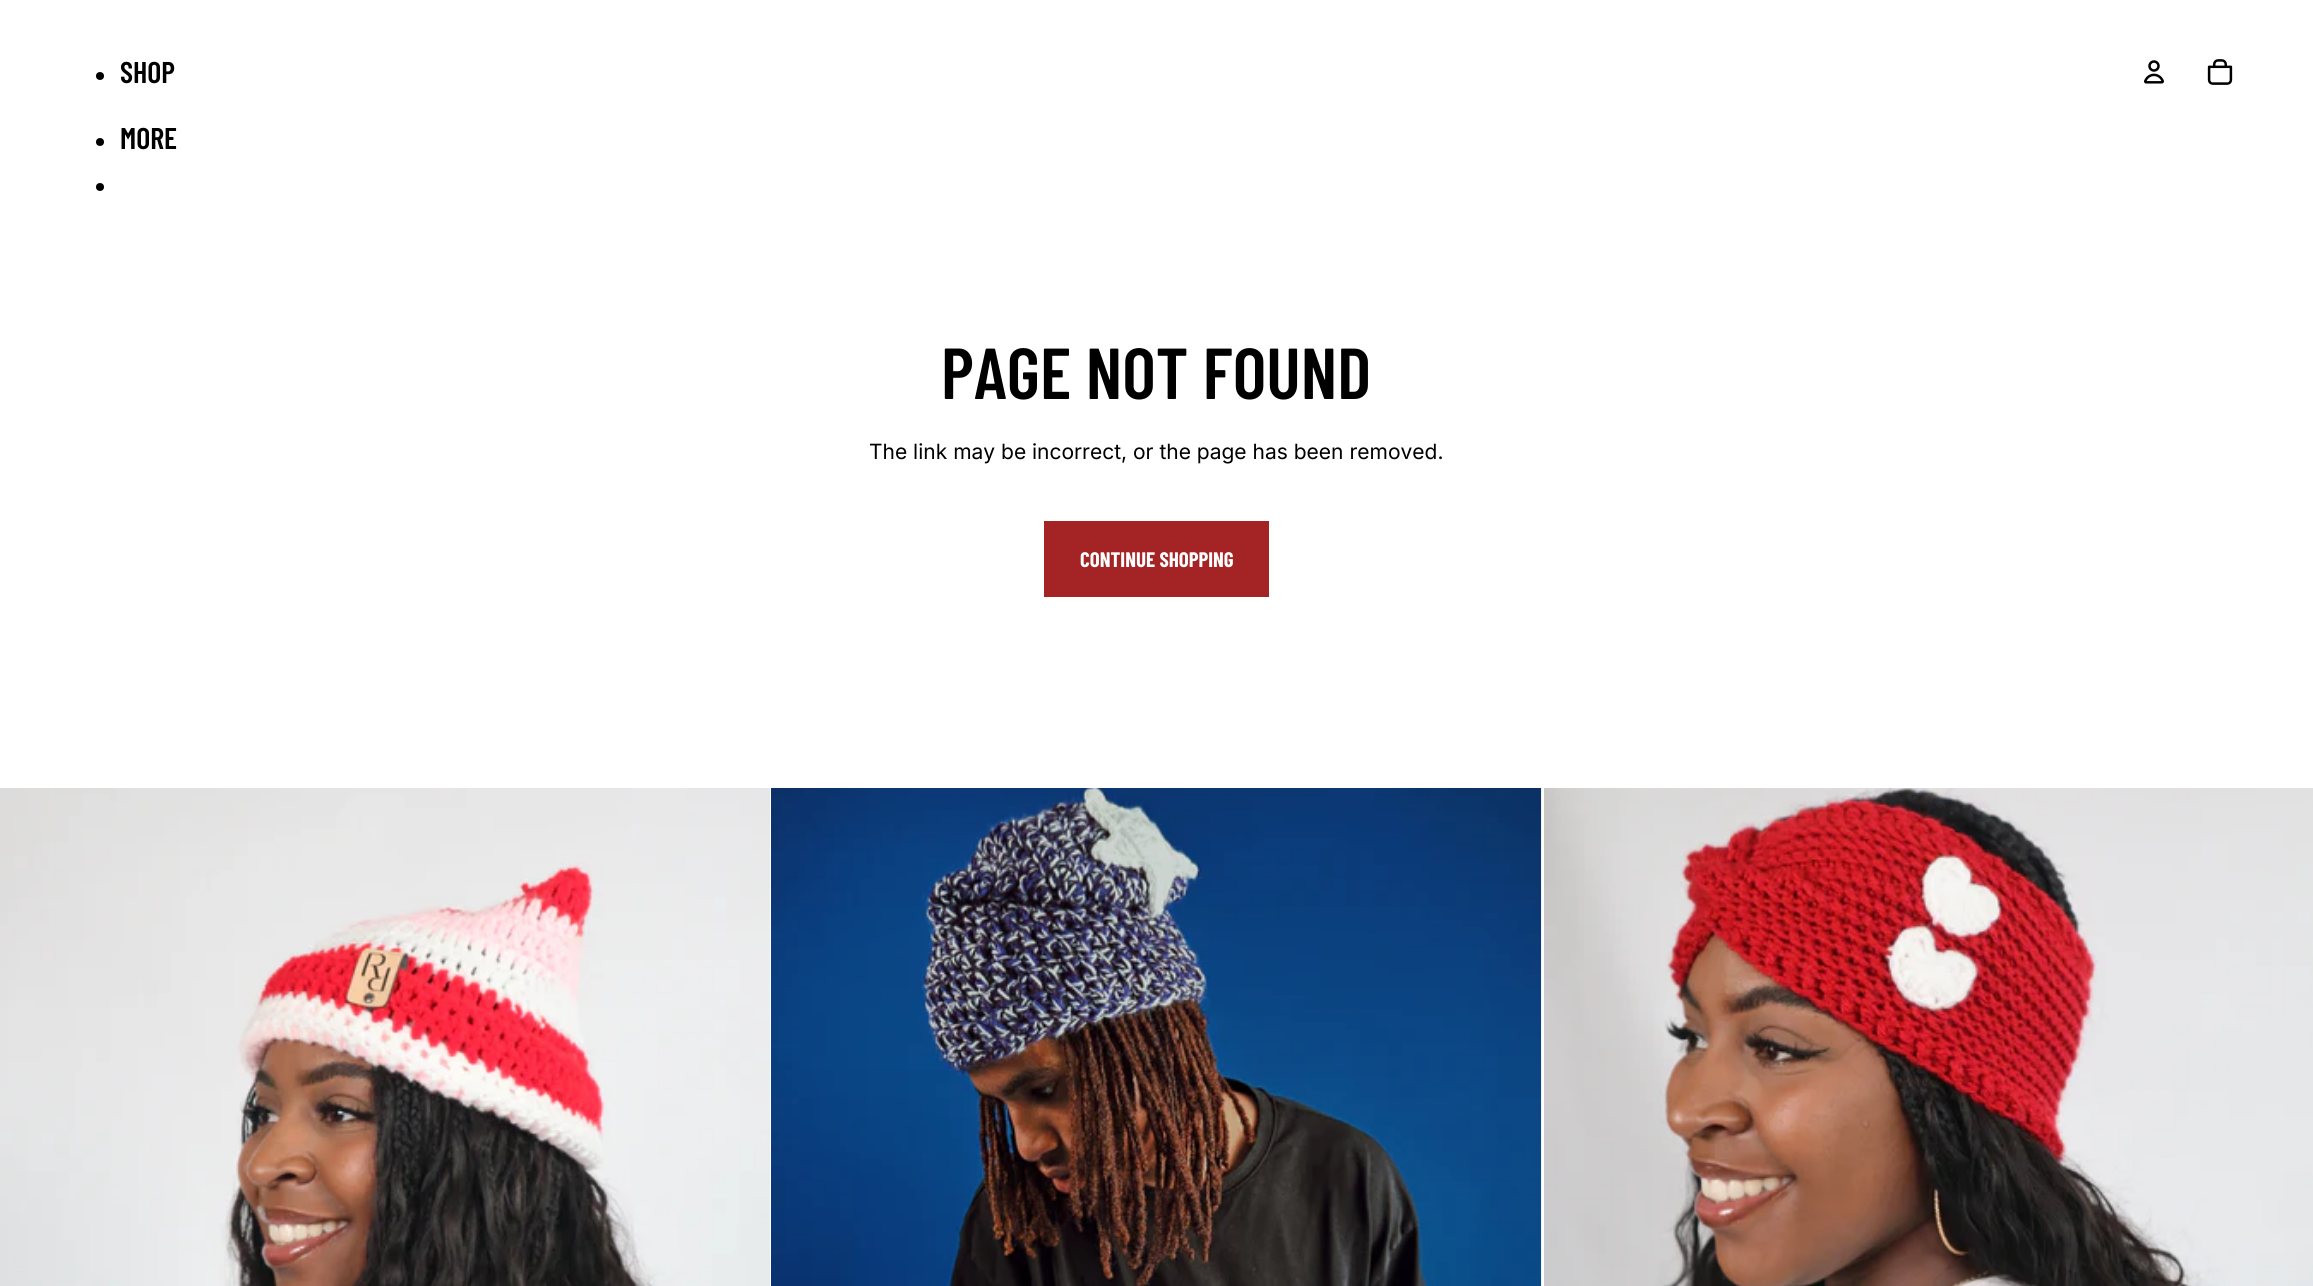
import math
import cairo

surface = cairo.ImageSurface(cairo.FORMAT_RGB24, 2313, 1286)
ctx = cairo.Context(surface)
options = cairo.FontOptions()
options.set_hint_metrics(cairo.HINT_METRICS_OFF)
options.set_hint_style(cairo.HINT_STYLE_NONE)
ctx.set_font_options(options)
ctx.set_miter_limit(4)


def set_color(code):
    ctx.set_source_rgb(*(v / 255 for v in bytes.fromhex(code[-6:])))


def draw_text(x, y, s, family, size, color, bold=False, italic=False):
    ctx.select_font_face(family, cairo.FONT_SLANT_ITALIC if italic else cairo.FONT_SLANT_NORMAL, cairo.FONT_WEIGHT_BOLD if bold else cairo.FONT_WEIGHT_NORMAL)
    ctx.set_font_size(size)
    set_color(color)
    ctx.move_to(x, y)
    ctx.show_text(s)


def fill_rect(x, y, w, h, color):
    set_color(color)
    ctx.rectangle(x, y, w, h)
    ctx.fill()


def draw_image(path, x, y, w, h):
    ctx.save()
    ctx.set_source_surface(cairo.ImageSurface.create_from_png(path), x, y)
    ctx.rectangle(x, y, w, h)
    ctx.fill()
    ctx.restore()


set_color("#ffffff")
ctx.paint()
set_color("#000000")
ctx.arc(100, 76, 4, 0, 2 * math.pi)
ctx.fill()
draw_text(120, 83, "SHOP", "Barlow Condensed SemiBold", 30, "#000000")
ctx.new_path()
ctx.arc(100, 142, 4, 0, 2 * math.pi)
ctx.fill()
draw_text(120, 149, "MORE", "Barlow Condensed SemiBold", 30, "#000000")
ctx.new_path()
ctx.arc(100, 187, 4, 0, 2 * math.pi)
ctx.fill()
draw_image("assets/img1.png", 2144, 60, 20, 24)
draw_image("assets/img2.png", 2207, 59, 26, 26)
draw_text(941, 399, "PAGE NOT FOUND", "Barlow Condensed SemiBold", 72, "#000000")
draw_text(869, 459, "The link may be incorrect, or the page has been removed.", "Inter", 21, "#000000")
fill_rect(1044, 521, 225, 76, "#a42325")
draw_text(1080, 567, "CONTINUE SHOPPING", "Barlow Condensed", 21, "#ffffff", bold=True)
draw_image("assets/img3.png", 0, 788, 770, 498)
fill_rect(1541, 788, 1, 498, "#f1f1f1")
draw_image("assets/img4.png", 771, 788, 770, 498)
draw_image("assets/img5.png", 1544, 788, 769, 498)
surface.write_to_png("output.png")
